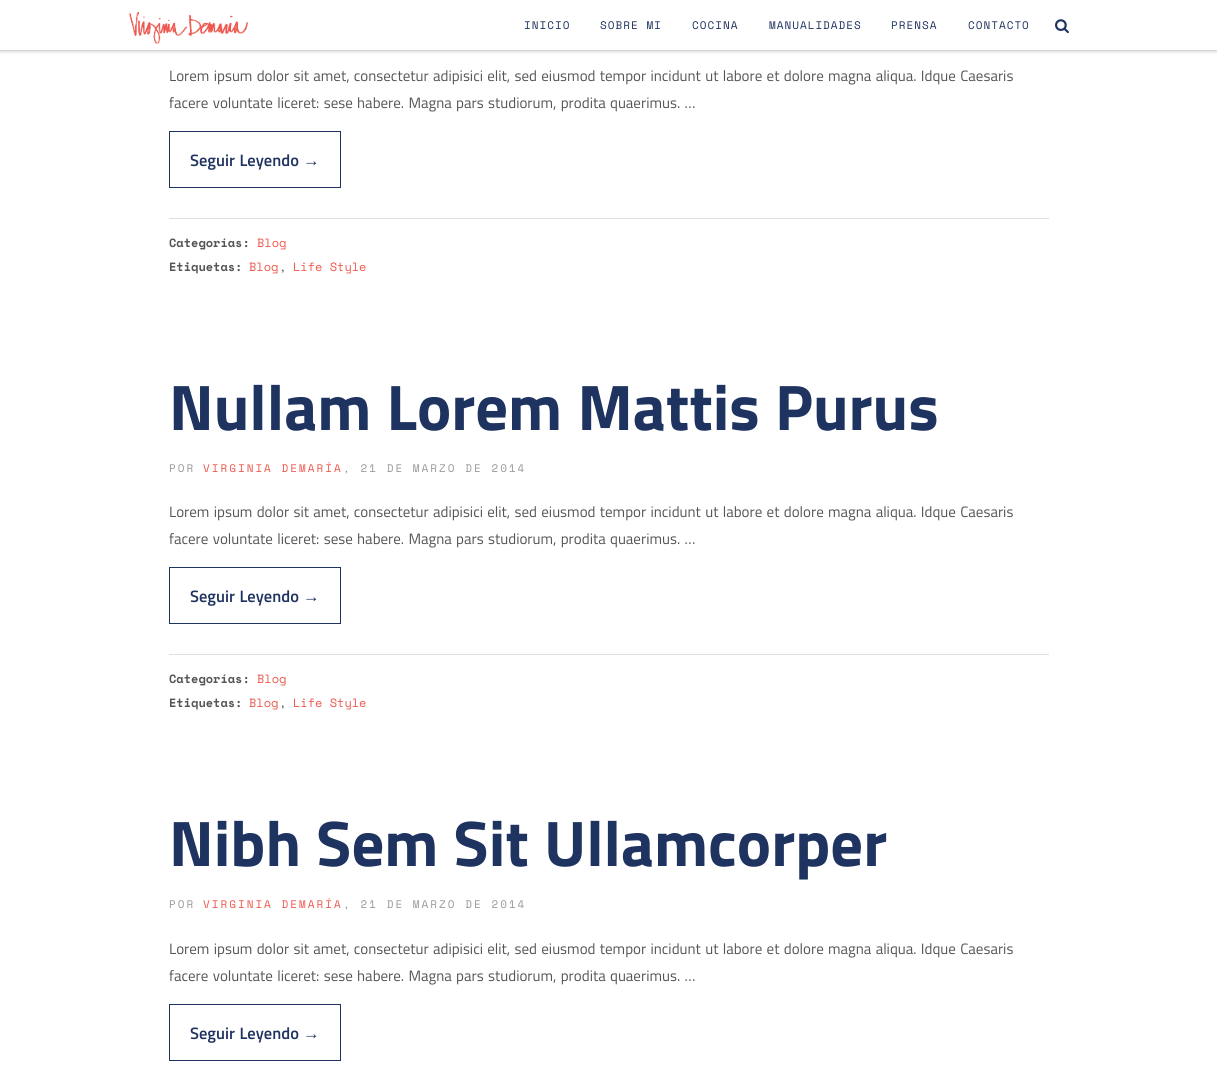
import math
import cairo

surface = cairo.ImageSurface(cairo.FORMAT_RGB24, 1217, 1083)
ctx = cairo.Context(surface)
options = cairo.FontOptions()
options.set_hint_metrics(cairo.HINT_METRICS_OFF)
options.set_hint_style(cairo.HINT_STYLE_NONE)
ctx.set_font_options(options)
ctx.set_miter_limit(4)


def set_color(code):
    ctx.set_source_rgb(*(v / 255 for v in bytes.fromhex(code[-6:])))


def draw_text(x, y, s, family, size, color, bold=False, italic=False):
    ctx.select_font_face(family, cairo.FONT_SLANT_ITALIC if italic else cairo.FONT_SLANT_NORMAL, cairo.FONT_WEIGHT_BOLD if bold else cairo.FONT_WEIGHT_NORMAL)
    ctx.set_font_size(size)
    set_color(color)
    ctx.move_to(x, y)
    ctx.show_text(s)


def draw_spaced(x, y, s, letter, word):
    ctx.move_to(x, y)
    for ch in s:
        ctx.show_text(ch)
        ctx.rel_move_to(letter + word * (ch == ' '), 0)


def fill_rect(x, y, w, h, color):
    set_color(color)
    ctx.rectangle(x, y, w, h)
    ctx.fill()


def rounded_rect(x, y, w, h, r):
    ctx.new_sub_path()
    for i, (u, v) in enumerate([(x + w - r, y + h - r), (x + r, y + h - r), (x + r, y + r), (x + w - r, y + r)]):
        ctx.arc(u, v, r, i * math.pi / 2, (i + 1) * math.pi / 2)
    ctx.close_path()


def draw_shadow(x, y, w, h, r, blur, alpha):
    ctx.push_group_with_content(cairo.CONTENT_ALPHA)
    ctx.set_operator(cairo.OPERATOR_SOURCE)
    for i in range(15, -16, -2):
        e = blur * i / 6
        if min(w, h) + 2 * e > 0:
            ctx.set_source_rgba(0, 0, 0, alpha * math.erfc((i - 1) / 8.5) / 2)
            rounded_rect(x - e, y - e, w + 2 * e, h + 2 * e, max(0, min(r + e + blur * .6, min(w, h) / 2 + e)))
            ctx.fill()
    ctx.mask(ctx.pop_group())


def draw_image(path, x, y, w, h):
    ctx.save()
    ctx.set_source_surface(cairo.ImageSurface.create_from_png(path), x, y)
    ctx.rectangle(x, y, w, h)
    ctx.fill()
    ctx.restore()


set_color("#ffffff")
ctx.paint()
ctx.rectangle(-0.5, -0.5, 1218, 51)
set_color("#f2f2f2")
ctx.set_line_width(1)
ctx.stroke()
set_color("#000000")
draw_shadow(0, 2, 1217, 50, 0, 1.5, 0.15)
fill_rect(0, 0, 1217, 50, "#ffffff")
draw_image("assets/img1.png", 128, 12, 120, 32)
ctx.select_font_face("Space Mono")
ctx.set_font_size(11)
set_color("#1f3360")
draw_spaced(524, 29, "INICIO", 1, 0)
draw_spaced(600, 29, "SOBRE MI", 1, 0)
draw_spaced(692, 29, "COCINA", 1, 0)
draw_spaced(769, 29, "MANUALIDADES", 1, 0)
draw_spaced(891, 29, "PRENSA", 1, 0)
draw_spaced(968, 29, "CONTACTO", 1, 0)
draw_image("assets/img2.png", 1055, 19, 14, 15)
ctx.select_font_face("Titillium Web")
ctx.set_font_size(15)
set_color("#555555")
draw_spaced(169, 81, "Lorem ipsum dolor sit amet, consectetur adipisici elit, sed eiusmod tempor incidunt ut labore et dolore magna aliqua. Idque Caesaris", 0, 1)
draw_spaced(169, 108, "facere voluntate liceret: sese habere. Magna pars studiorum, prodita quaerimus. …", 0, 1)
ctx.rectangle(169.5, 131.5, 171, 56)
set_color("#1f3360")
ctx.stroke()
ctx.select_font_face("Titillium Web SemiBold")
ctx.set_font_size(16.5)
draw_spaced(190, 166, "Seguir Leyendo", 0, 1)
draw_text(303, 166, "→", "Liberation Sans", 16.5, "#1f3360", bold=True)
fill_rect(169, 218, 880, 1, "#e0e0e0")
draw_text(169, 247, "Categorías:", "Space Mono", 12, "#555555", bold=True)
draw_text(257, 247, "Blog", "Space Mono", 12, "#ec574d")
draw_text(169, 271, "Etiquetas:", "Space Mono", 12, "#555555", bold=True)
draw_text(249, 271, "Blog", "Space Mono", 12, "#ec574d")
draw_text(279, 271, ",", "Space Mono", 12, "#555555")
draw_text(293, 271, "Life Style", "Space Mono", 12, "#ec574d")
ctx.select_font_face("Titillium Web", cairo.FONT_SLANT_NORMAL, cairo.FONT_WEIGHT_BOLD)
ctx.set_font_size(64.5)
set_color("#1f3360")
draw_spaced(169, 430, "Nullam Lorem Mattis Purus", 0, 1)
ctx.select_font_face("Space Mono")
ctx.set_font_size(11)
set_color("#999999")
draw_spaced(169, 472, "POR", 2, 0)
set_color("#ec574d")
draw_spaced(203, 472, "VIRGINIA DEMARÍA", 2, 0)
set_color("#999999")
draw_spaced(343, 472, ", 21 DE MARZO DE 2014", 2, 0)
ctx.select_font_face("Titillium Web")
ctx.set_font_size(15)
set_color("#555555")
draw_spaced(169, 517, "Lorem ipsum dolor sit amet, consectetur adipisici elit, sed eiusmod tempor incidunt ut labore et dolore magna aliqua. Idque Caesaris", 0, 1)
draw_spaced(169, 544, "facere voluntate liceret: sese habere. Magna pars studiorum, prodita quaerimus. …", 0, 1)
ctx.rectangle(169.5, 567.5, 171, 56)
set_color("#1f3360")
ctx.stroke()
ctx.select_font_face("Titillium Web SemiBold")
ctx.set_font_size(16.5)
draw_spaced(190, 602, "Seguir Leyendo", 0, 1)
draw_text(303, 602, "→", "Liberation Sans", 16.5, "#1f3360", bold=True)
fill_rect(169, 654, 880, 1, "#e0e0e0")
draw_text(169, 683, "Categorías:", "Space Mono", 12, "#555555", bold=True)
draw_text(257, 683, "Blog", "Space Mono", 12, "#ec574d")
draw_text(169, 707, "Etiquetas:", "Space Mono", 12, "#555555", bold=True)
draw_text(249, 707, "Blog", "Space Mono", 12, "#ec574d")
draw_text(279, 707, ",", "Space Mono", 12, "#555555")
draw_text(293, 707, "Life Style", "Space Mono", 12, "#ec574d")
ctx.select_font_face("Titillium Web", cairo.FONT_SLANT_NORMAL, cairo.FONT_WEIGHT_BOLD)
ctx.set_font_size(64.5)
set_color("#1f3360")
draw_spaced(169, 866, "Nibh Sem Sit Ullamcorper", 0, 1)
ctx.select_font_face("Space Mono")
ctx.set_font_size(11)
set_color("#999999")
draw_spaced(169, 908, "POR", 2, 0)
set_color("#ec574d")
draw_spaced(203, 908, "VIRGINIA DEMARÍA", 2, 0)
set_color("#999999")
draw_spaced(343, 908, ", 21 DE MARZO DE 2014", 2, 0)
ctx.select_font_face("Titillium Web")
ctx.set_font_size(15)
set_color("#555555")
draw_spaced(169, 954, "Lorem ipsum dolor sit amet, consectetur adipisici elit, sed eiusmod tempor incidunt ut labore et dolore magna aliqua. Idque Caesaris", 0, 1)
draw_spaced(169, 981, "facere voluntate liceret: sese habere. Magna pars studiorum, prodita quaerimus. …", 0, 1)
ctx.rectangle(169.5, 1004.5, 171, 56)
set_color("#1f3360")
ctx.stroke()
ctx.select_font_face("Titillium Web SemiBold")
ctx.set_font_size(16.5)
draw_spaced(190, 1039, "Seguir Leyendo", 0, 1)
draw_text(303, 1039, "→", "Liberation Sans", 16.5, "#1f3360", bold=True)
surface.write_to_png("output.png")
